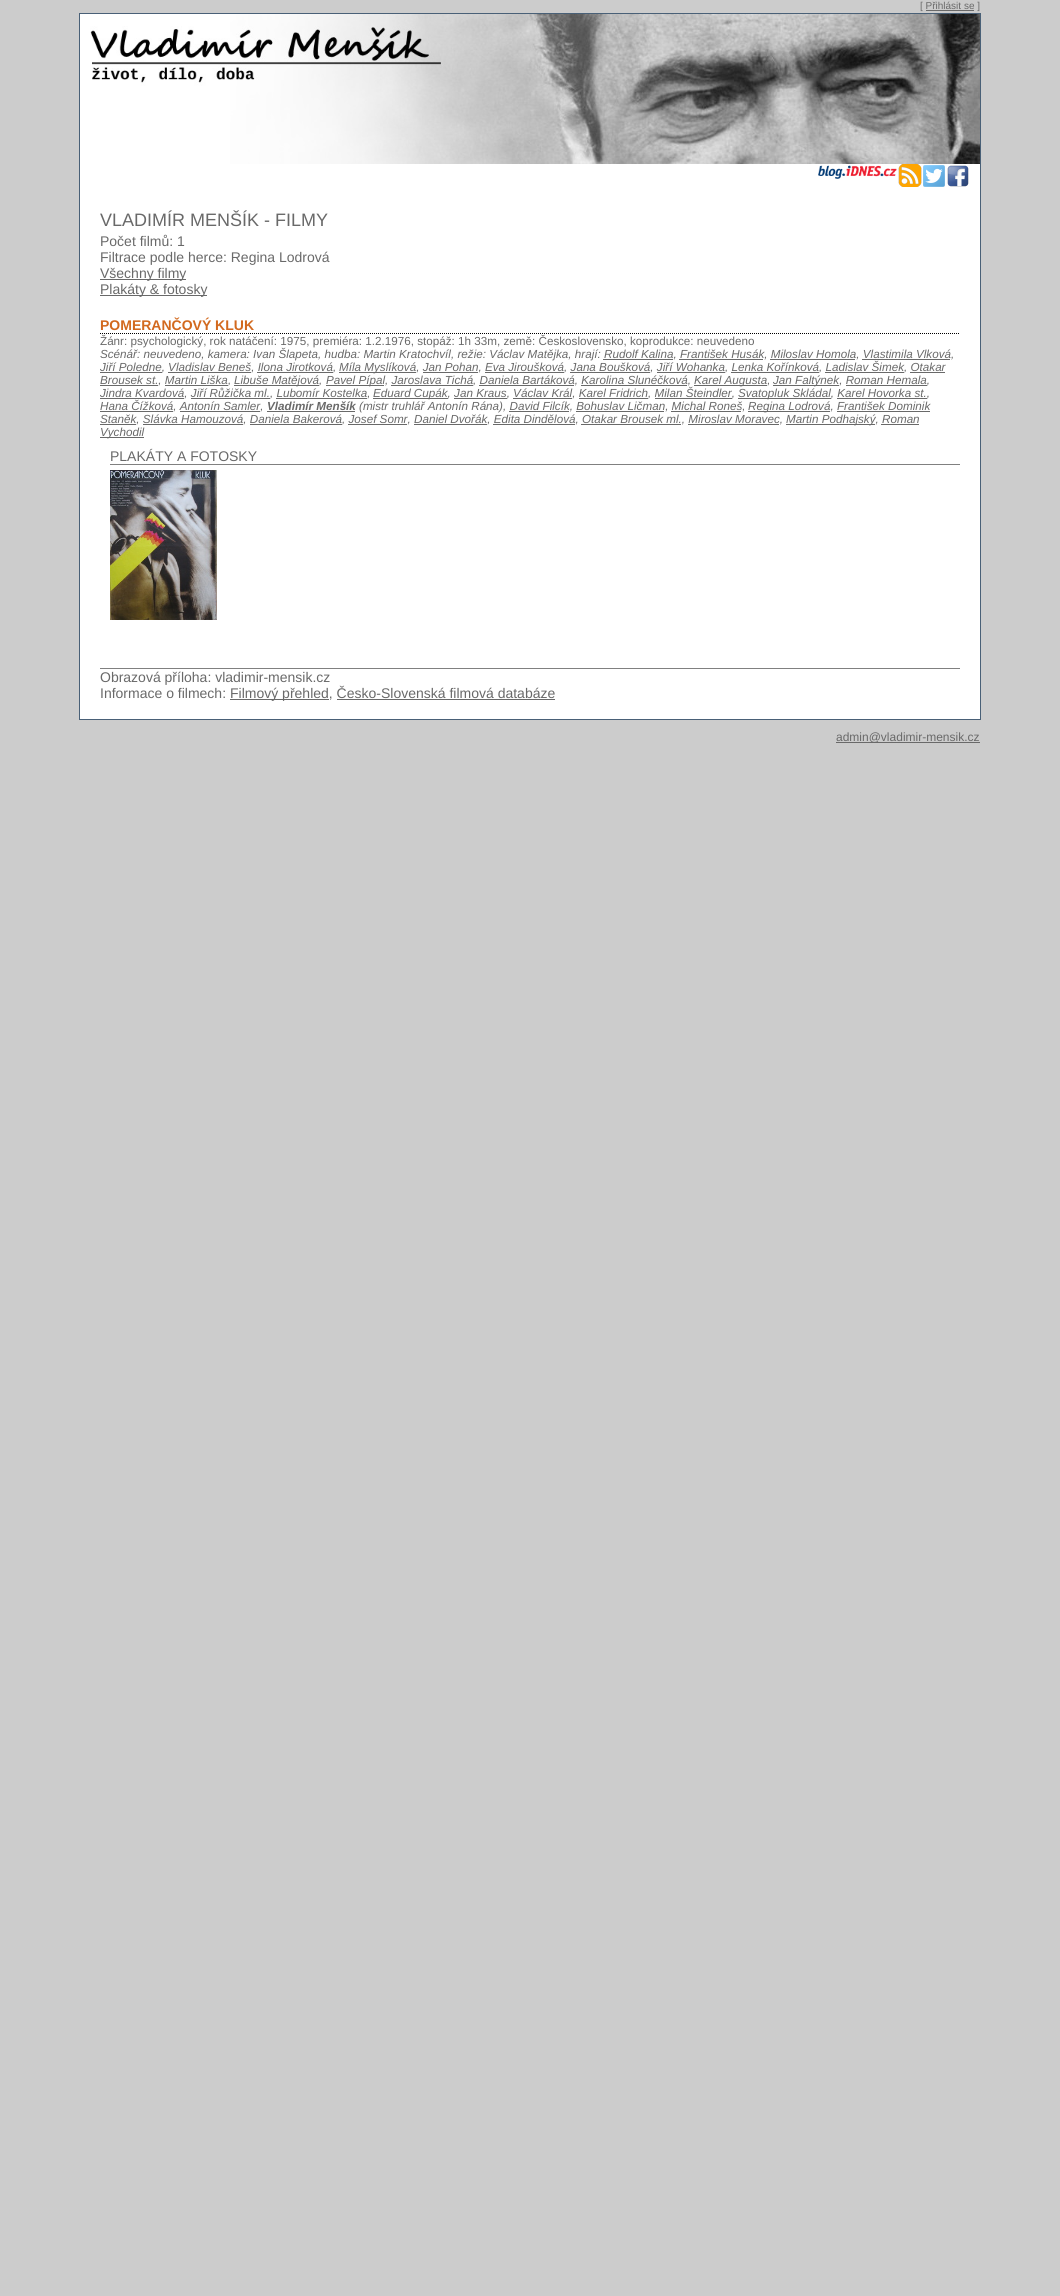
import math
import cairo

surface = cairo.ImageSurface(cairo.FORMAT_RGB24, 1060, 2296)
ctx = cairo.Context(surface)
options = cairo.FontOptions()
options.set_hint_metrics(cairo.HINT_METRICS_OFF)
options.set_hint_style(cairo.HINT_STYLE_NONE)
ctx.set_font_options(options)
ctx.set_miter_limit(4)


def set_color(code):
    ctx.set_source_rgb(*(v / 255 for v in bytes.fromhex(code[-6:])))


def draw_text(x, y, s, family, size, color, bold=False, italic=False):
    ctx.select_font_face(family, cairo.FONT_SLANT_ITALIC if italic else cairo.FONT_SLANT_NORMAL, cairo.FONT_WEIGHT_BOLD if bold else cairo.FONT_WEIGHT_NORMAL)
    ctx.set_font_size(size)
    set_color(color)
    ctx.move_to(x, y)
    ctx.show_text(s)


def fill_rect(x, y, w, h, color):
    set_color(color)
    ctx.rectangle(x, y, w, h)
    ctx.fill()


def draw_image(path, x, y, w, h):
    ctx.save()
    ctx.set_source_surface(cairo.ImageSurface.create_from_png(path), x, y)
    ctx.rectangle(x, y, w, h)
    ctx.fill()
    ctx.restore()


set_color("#cccccc")
ctx.paint()
draw_text(920, 9, "[ Přihlásit se ]", "Liberation Sans", 10, "#696969")
fill_rect(926, 10, 48, 1, "#696969")
set_color("#ffffff")
ctx.rectangle(79.5, 13.5, 901, 706)
ctx.fill_preserve()
set_color("#496077")
ctx.set_line_width(1)
ctx.stroke()
draw_image("assets/img1.png", 90, 14, 890, 150)
draw_image("assets/img2.png", 818, 165, 79, 14)
draw_image("assets/img3.png", 898, 164, 24, 23)
draw_image("assets/img4.png", 923, 165, 22, 22)
draw_image("assets/img5.png", 947, 165, 22, 22)
draw_text(100, 226, "VLADIMÍR MENŠÍK - FILMY", "Liberation Sans", 18, "#696969")
draw_text(100, 246, "Počet filmů: 1", "Liberation Sans", 14, "#696969")
draw_text(100, 262, "Filtrace podle herce: Regina Lodrová", "Liberation Sans", 14, "#696969")
fill_rect(100, 279, 86, 1, "#696969")
draw_text(100, 278, "Všechny filmy", "Liberation Sans", 14, "#696969")
fill_rect(100, 295, 107, 1, "#696969")
draw_text(100, 294, "Plakáty & fotosky", "Liberation Sans", 14, "#696969")
ctx.new_path()
ctx.move_to(100, 333.5)
ctx.line_to(960, 333.5)
set_color("#000000")
ctx.set_dash([1, 1])
ctx.stroke()
draw_text(100, 330, "POMERANČOVÝ KLUK", "Liberation Sans", 14, "#d2691e", bold=True)
draw_text(100, 345, "Žánr: psychologický, rok natáčení: 1975, premiéra: 1.2.1976, stopáž: 1h 33m, země: Československo, koprodukce: neuvedeno", "Liberation Sans", 11.67, "#696969")
draw_text(100, 358, "Scénář: neuvedeno, kamera: Ivan Šlapeta, hudba: Martin Kratochvíl, režie: Václav Matějka, hrají: Rudolf Kalina, František Husák, Miloslav Homola, Vlastimila Vlková,", "Liberation Sans", 11.67, "#696969", italic=True)
fill_rect(603, 359, 70, 1, "#696969")
fill_rect(679, 359, 84, 1, "#696969")
fill_rect(770, 359, 85, 1, "#696969")
fill_rect(862, 359, 88, 1, "#696969")
fill_rect(100, 372, 62, 1, "#696969")
draw_text(100, 371, "Jiří Poledne, Vladislav Beneš, Ilona Jirotková", "Liberation Sans", 11.67, "#696969", italic=True)
fill_rect(168, 372, 83, 1, "#696969")
fill_rect(257, 372, 76, 1, "#696969")
draw_text(333, 371, ",", "Liberation Sans", 11.67, "#696969", italic=True)
fill_rect(339, 372, 77, 1, "#696969")
draw_text(339, 371, "Míla Myslíková, Jan Pohan, Eva Jiroušková, Jana Boušková, Jiří Wohanka", "Liberation Sans", 11.67, "#696969", italic=True)
fill_rect(423, 372, 55, 1, "#696969")
fill_rect(485, 372, 79, 1, "#696969")
fill_rect(570, 372, 80, 1, "#696969")
fill_rect(657, 372, 68, 1, "#696969")
draw_text(725, 371, ", Lenka Kořínková", "Liberation Sans", 11.67, "#696969", italic=True)
fill_rect(731, 372, 88, 1, "#696969")
draw_text(819, 371, ", Ladislav Šimek", "Liberation Sans", 11.67, "#696969", italic=True)
fill_rect(825, 372, 79, 1, "#696969")
draw_text(904, 371, ", Otakar", "Liberation Sans", 11.67, "#696969", italic=True)
fill_rect(910, 372, 35, 1, "#696969")
fill_rect(100, 385, 58, 1, "#696969")
draw_text(100, 384, "Brousek st., Martin Liška", "Liberation Sans", 11.67, "#696969", italic=True)
fill_rect(165, 385, 63, 1, "#696969")
draw_text(228, 384, ",", "Liberation Sans", 11.67, "#696969", italic=True)
fill_rect(234, 385, 85, 1, "#696969")
draw_text(234, 384, "Libuše Matějová,", "Liberation Sans", 11.67, "#696969", italic=True)
fill_rect(326, 385, 58, 1, "#696969")
draw_text(326, 384, "Pavel Pípal, Jaroslava Tichá", "Liberation Sans", 11.67, "#696969", italic=True)
fill_rect(391, 385, 82, 1, "#696969")
draw_text(473, 384, ", Daniela Bartáková, Karolina Slunéčková,", "Liberation Sans", 11.67, "#696969", italic=True)
fill_rect(479, 385, 95, 1, "#696969")
fill_rect(581, 385, 106, 1, "#696969")
fill_rect(694, 385, 73, 1, "#696969")
draw_text(694, 384, "Karel Augusta,", "Liberation Sans", 11.67, "#696969", italic=True)
fill_rect(773, 385, 66, 1, "#696969")
draw_text(773, 384, "Jan Faltýnek, Roman Hemala,", "Liberation Sans", 11.67, "#696969", italic=True)
fill_rect(846, 385, 81, 1, "#696969")
fill_rect(100, 398, 84, 1, "#696969")
draw_text(100, 397, "Jindra Kvardová, Jiří Růžička ml., Lubomír Kostelka,", "Liberation Sans", 11.67, "#696969", italic=True)
fill_rect(191, 398, 79, 1, "#696969")
fill_rect(276, 398, 91, 1, "#696969")
fill_rect(373, 398, 75, 1, "#696969")
draw_text(373, 397, "Eduard Cupák, Jan Kraus, Václav Král, Karel Fridrich, Milan Šteindler,", "Liberation Sans", 11.67, "#696969", italic=True)
fill_rect(454, 398, 53, 1, "#696969")
fill_rect(513, 398, 59, 1, "#696969")
fill_rect(579, 398, 69, 1, "#696969")
fill_rect(655, 398, 77, 1, "#696969")
fill_rect(738, 398, 93, 1, "#696969")
draw_text(738, 397, "Svatopluk Skládal, Karel Hovorka st.,", "Liberation Sans", 11.67, "#696969", italic=True)
fill_rect(837, 398, 90, 1, "#696969")
fill_rect(100, 411, 73, 1, "#696969")
draw_text(100, 410, "Hana Čížková, Antonín Samler,", "Liberation Sans", 11.67, "#696969", italic=True)
fill_rect(180, 411, 80, 1, "#696969")
draw_text(267, 410, "Vladimír Menšík", "Liberation Sans", 11.67, "#696969", bold=True, italic=True)
fill_rect(267, 411, 88, 1, "#696969")
draw_text(359, 410, "(mistr truhlář Antonín Rána), David Filcík, Bohuslav Ličman, Michal Roneš,", "Liberation Sans", 11.67, "#696969", italic=True)
fill_rect(748, 411, 82, 1, "#696969")
draw_text(748, 410, "Regina Lodrová, František Dominik", "Liberation Sans", 11.67, "#696969", italic=True)
fill_rect(509, 411, 60, 1, "#696969")
fill_rect(576, 411, 88, 1, "#696969")
fill_rect(671, 411, 70, 1, "#696969")
fill_rect(100, 424, 36, 1, "#696969")
draw_text(100, 423, "Staněk, Slávka Hamouzová, Daniela Bakerová", "Liberation Sans", 11.67, "#696969", italic=True)
fill_rect(837, 411, 93, 1, "#696969")
fill_rect(250, 424, 92, 1, "#696969")
draw_text(342, 423, ", Josef Somr, Daniel Dvořák, Edita Dindělová, Otakar Brousek ml., Miroslav Moravec,", "Liberation Sans", 11.67, "#696969", italic=True)
fill_rect(786, 424, 89, 1, "#696969")
draw_text(786, 423, "Martin Podhajský, Roman", "Liberation Sans", 11.67, "#696969", italic=True)
fill_rect(143, 424, 100, 1, "#696969")
fill_rect(348, 424, 59, 1, "#696969")
fill_rect(414, 424, 73, 1, "#696969")
fill_rect(493, 424, 82, 1, "#696969")
fill_rect(581, 424, 100, 1, "#696969")
fill_rect(688, 424, 91, 1, "#696969")
fill_rect(100, 437, 44, 1, "#696969")
draw_text(100, 436, "Vychodil", "Liberation Sans", 11.67, "#696969", italic=True)
fill_rect(881, 424, 38, 1, "#696969")
fill_rect(110, 464, 850, 1, "#808080")
draw_text(110, 461, "PLAKÁTY A FOTOSKY", "Liberation Sans", 14, "#696969")
draw_image("assets/img6.png", 110, 470, 107, 150)
fill_rect(100, 668, 860, 1, "#808080")
draw_text(100, 682, "Obrazová příloha: vladimir-mensik.cz", "Liberation Sans", 14, "#696969")
draw_text(100, 698, "Informace o filmech:", "Liberation Sans", 14, "#696969")
fill_rect(230, 699, 99, 1, "#696969")
draw_text(230, 698, "Filmový přehled, Česko-Slovenská filmová databáze", "Liberation Sans", 14, "#696969")
fill_rect(337, 699, 218, 1, "#696969")
fill_rect(836, 742, 144, 1, "#696969")
draw_text(836, 741, "admin@vladimir-mensik.cz", "Liberation Sans", 12, "#696969")
surface.write_to_png("output.png")
